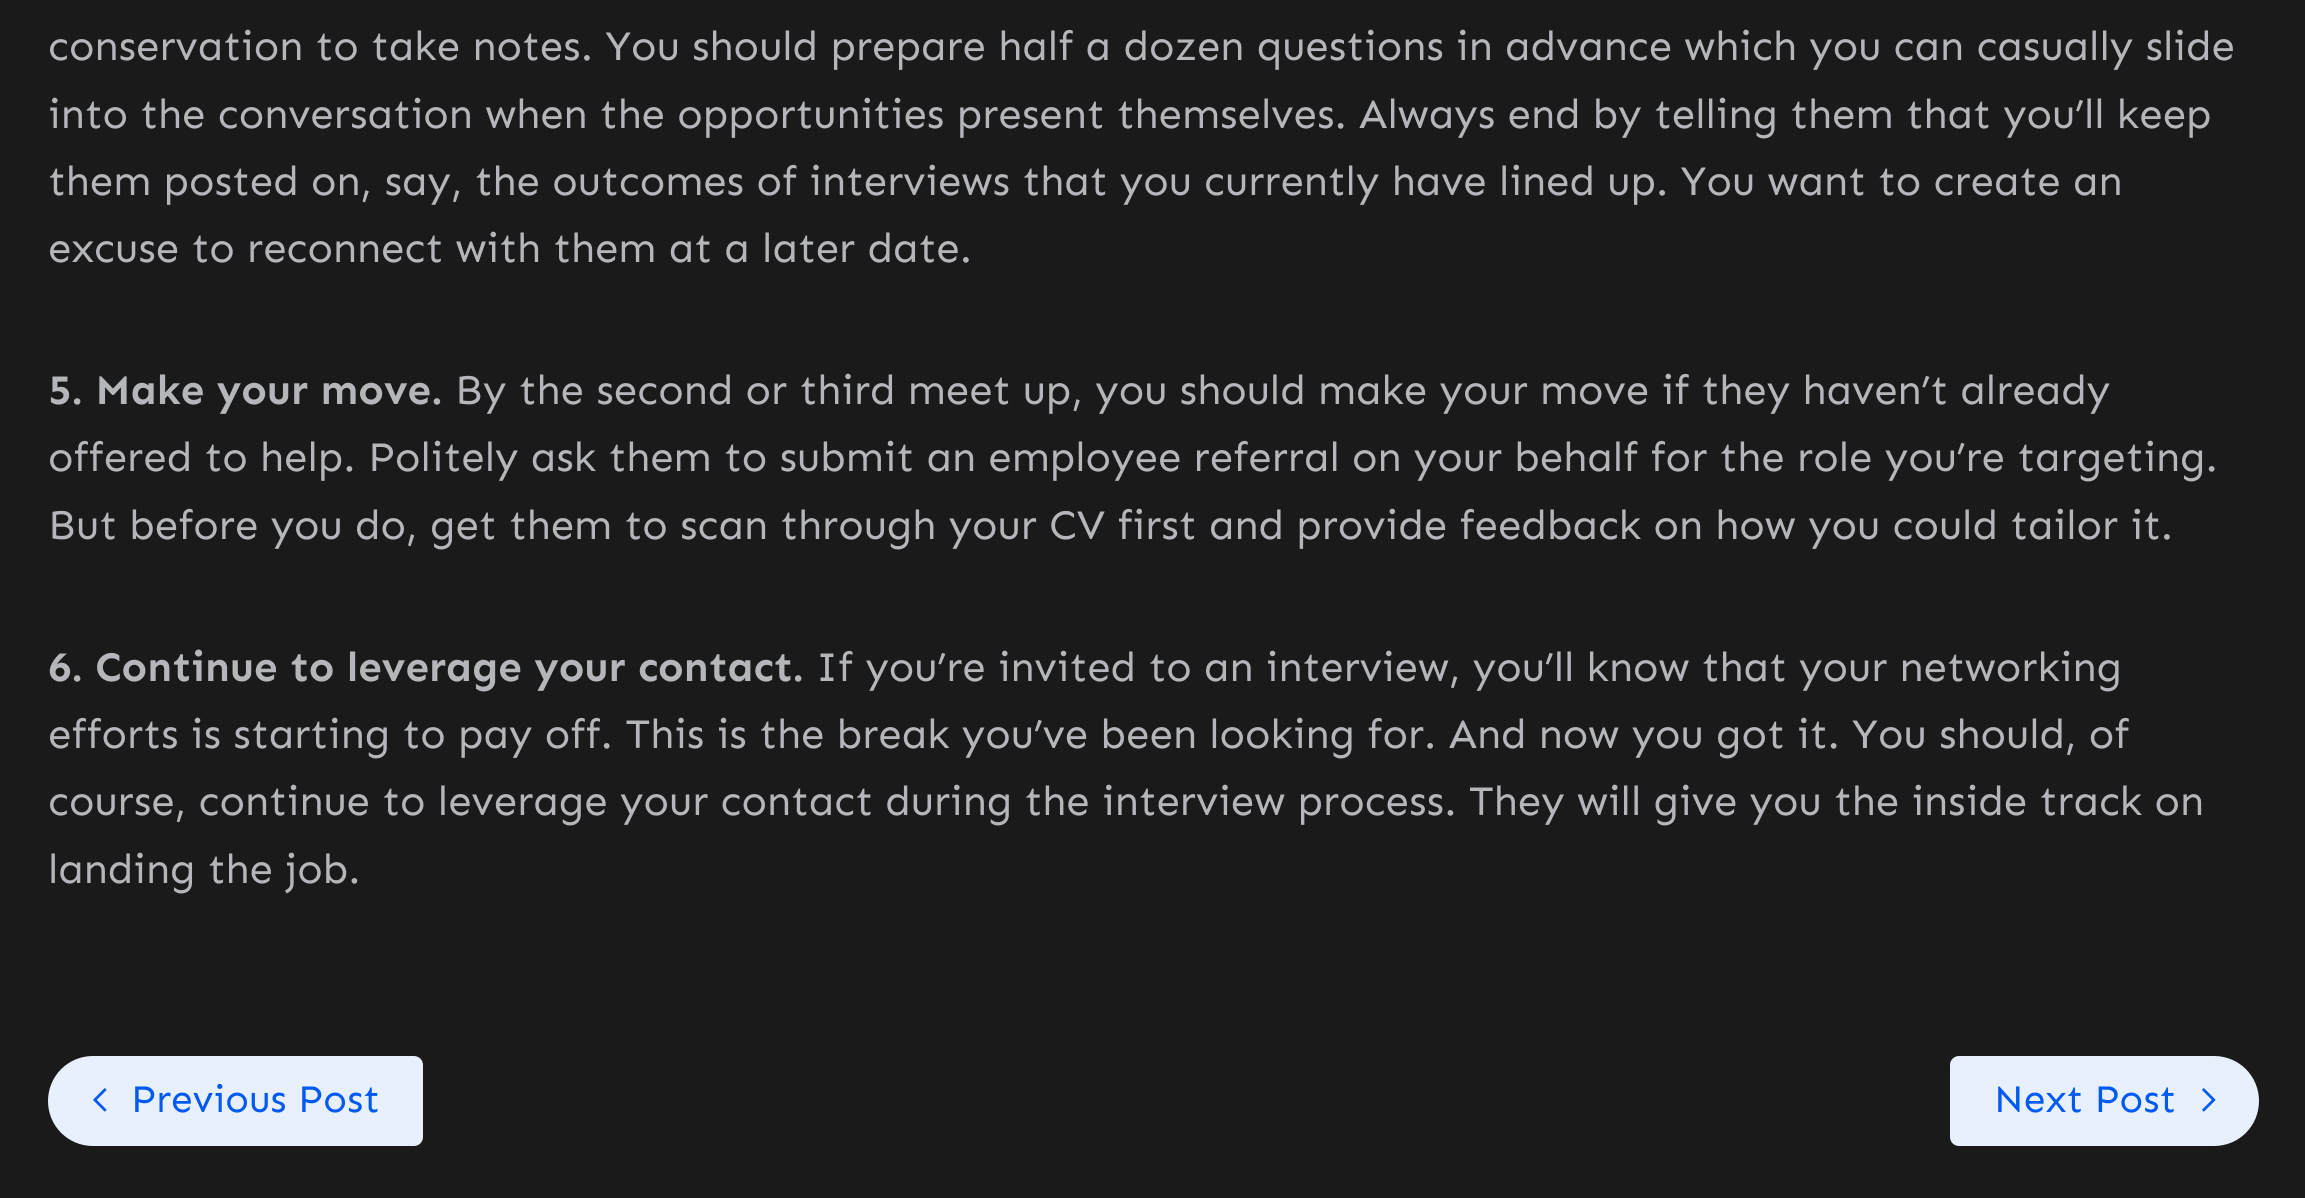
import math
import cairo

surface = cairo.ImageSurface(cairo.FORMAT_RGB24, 2305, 1198)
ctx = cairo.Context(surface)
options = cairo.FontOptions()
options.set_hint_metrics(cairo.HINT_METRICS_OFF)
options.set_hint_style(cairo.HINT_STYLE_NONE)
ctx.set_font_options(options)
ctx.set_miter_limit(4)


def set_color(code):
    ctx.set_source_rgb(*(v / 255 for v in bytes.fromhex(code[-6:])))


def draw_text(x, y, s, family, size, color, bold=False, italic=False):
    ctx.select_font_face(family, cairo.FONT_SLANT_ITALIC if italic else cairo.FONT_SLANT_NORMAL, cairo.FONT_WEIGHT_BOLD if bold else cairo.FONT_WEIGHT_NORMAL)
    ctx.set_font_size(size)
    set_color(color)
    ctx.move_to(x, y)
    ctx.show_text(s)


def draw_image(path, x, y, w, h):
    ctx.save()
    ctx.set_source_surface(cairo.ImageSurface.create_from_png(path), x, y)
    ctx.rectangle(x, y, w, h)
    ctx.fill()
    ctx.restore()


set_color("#1a1a1a")
ctx.paint()
draw_text(48, 60, "conservation to take notes. You should prepare half a dozen questions in advance which you can casually slide", "Sen", 42, "#b4b6ba")
draw_text(48, 128, "into the conversation when the opportunities present themselves. Always end by telling them that you’ll keep", "Sen", 42, "#b4b6ba")
draw_text(48, 195, "them posted on, say, the outcomes of interviews that you currently have lined up. You want to create an", "Sen", 42, "#b4b6ba")
draw_text(48, 262, "excuse to reconnect with them at a later date.", "Sen", 42, "#b4b6ba")
draw_text(48, 404, "5. Make your move.", "Sen", 42, "#b4b6ba", bold=True)
draw_text(455, 404, "By the second or third meet up, you should make your move if they haven’t already", "Sen", 42, "#b4b6ba")
draw_text(48, 471, "offered to help. Politely ask them to submit an employee referral on your behalf for the role you’re targeting.", "Sen", 42, "#b4b6ba")
draw_text(48, 539, "But before you do, get them to scan through your CV first and provide feedback on how you could tailor it.", "Sen", 42, "#b4b6ba")
draw_text(48, 681, "6. Continue to leverage your contact.", "Sen", 42, "#b4b6ba", bold=True)
draw_text(816, 681, "If you’re invited to an interview, you’ll know that your networking", "Sen", 42, "#b4b6ba")
draw_text(48, 748, "efforts is starting to pay off. This is the break you’ve been looking for. And now you got it. You should, of", "Sen", 42, "#b4b6ba")
draw_text(48, 815, "course, continue to leverage your contact during the interview process. They will give you the inside track on", "Sen", 42, "#b4b6ba")
draw_text(48, 883, "landing the job.", "Sen", 42, "#b4b6ba")
set_color("#e8f0fe")
ctx.new_path()
ctx.move_to(93, 1056)
ctx.line_to(414, 1056)
ctx.curve_to(419, 1056, 423, 1060, 423, 1065)
ctx.line_to(423, 1137)
ctx.curve_to(423, 1142, 419, 1146, 414, 1146)
ctx.line_to(93, 1146)
ctx.curve_to(68, 1146, 48, 1126, 48, 1101)
ctx.curve_to(48, 1076, 68, 1056, 93, 1056)
ctx.close_path()
ctx.fill()
draw_image("assets/img1.png", 93, 1088, 14, 24)
draw_text(131, 1112, "Previous Post", "Sen", 39, "#005af0")
set_color("#e8f0fe")
ctx.new_path()
ctx.move_to(1959, 1056)
ctx.line_to(2214, 1056)
ctx.curve_to(2239, 1056, 2259, 1076, 2259, 1101)
ctx.curve_to(2259, 1126, 2239, 1146, 2214, 1146)
ctx.line_to(1959, 1146)
ctx.curve_to(1954, 1146, 1950, 1142, 1950, 1137)
ctx.line_to(1950, 1065)
ctx.curve_to(1950, 1060, 1954, 1056, 1959, 1056)
ctx.close_path()
ctx.fill()
draw_text(1994, 1112, "Next Post", "Sen", 39, "#005af0")
draw_image("assets/img2.png", 2202, 1088, 14, 24)
surface.write_to_png("output.png")
